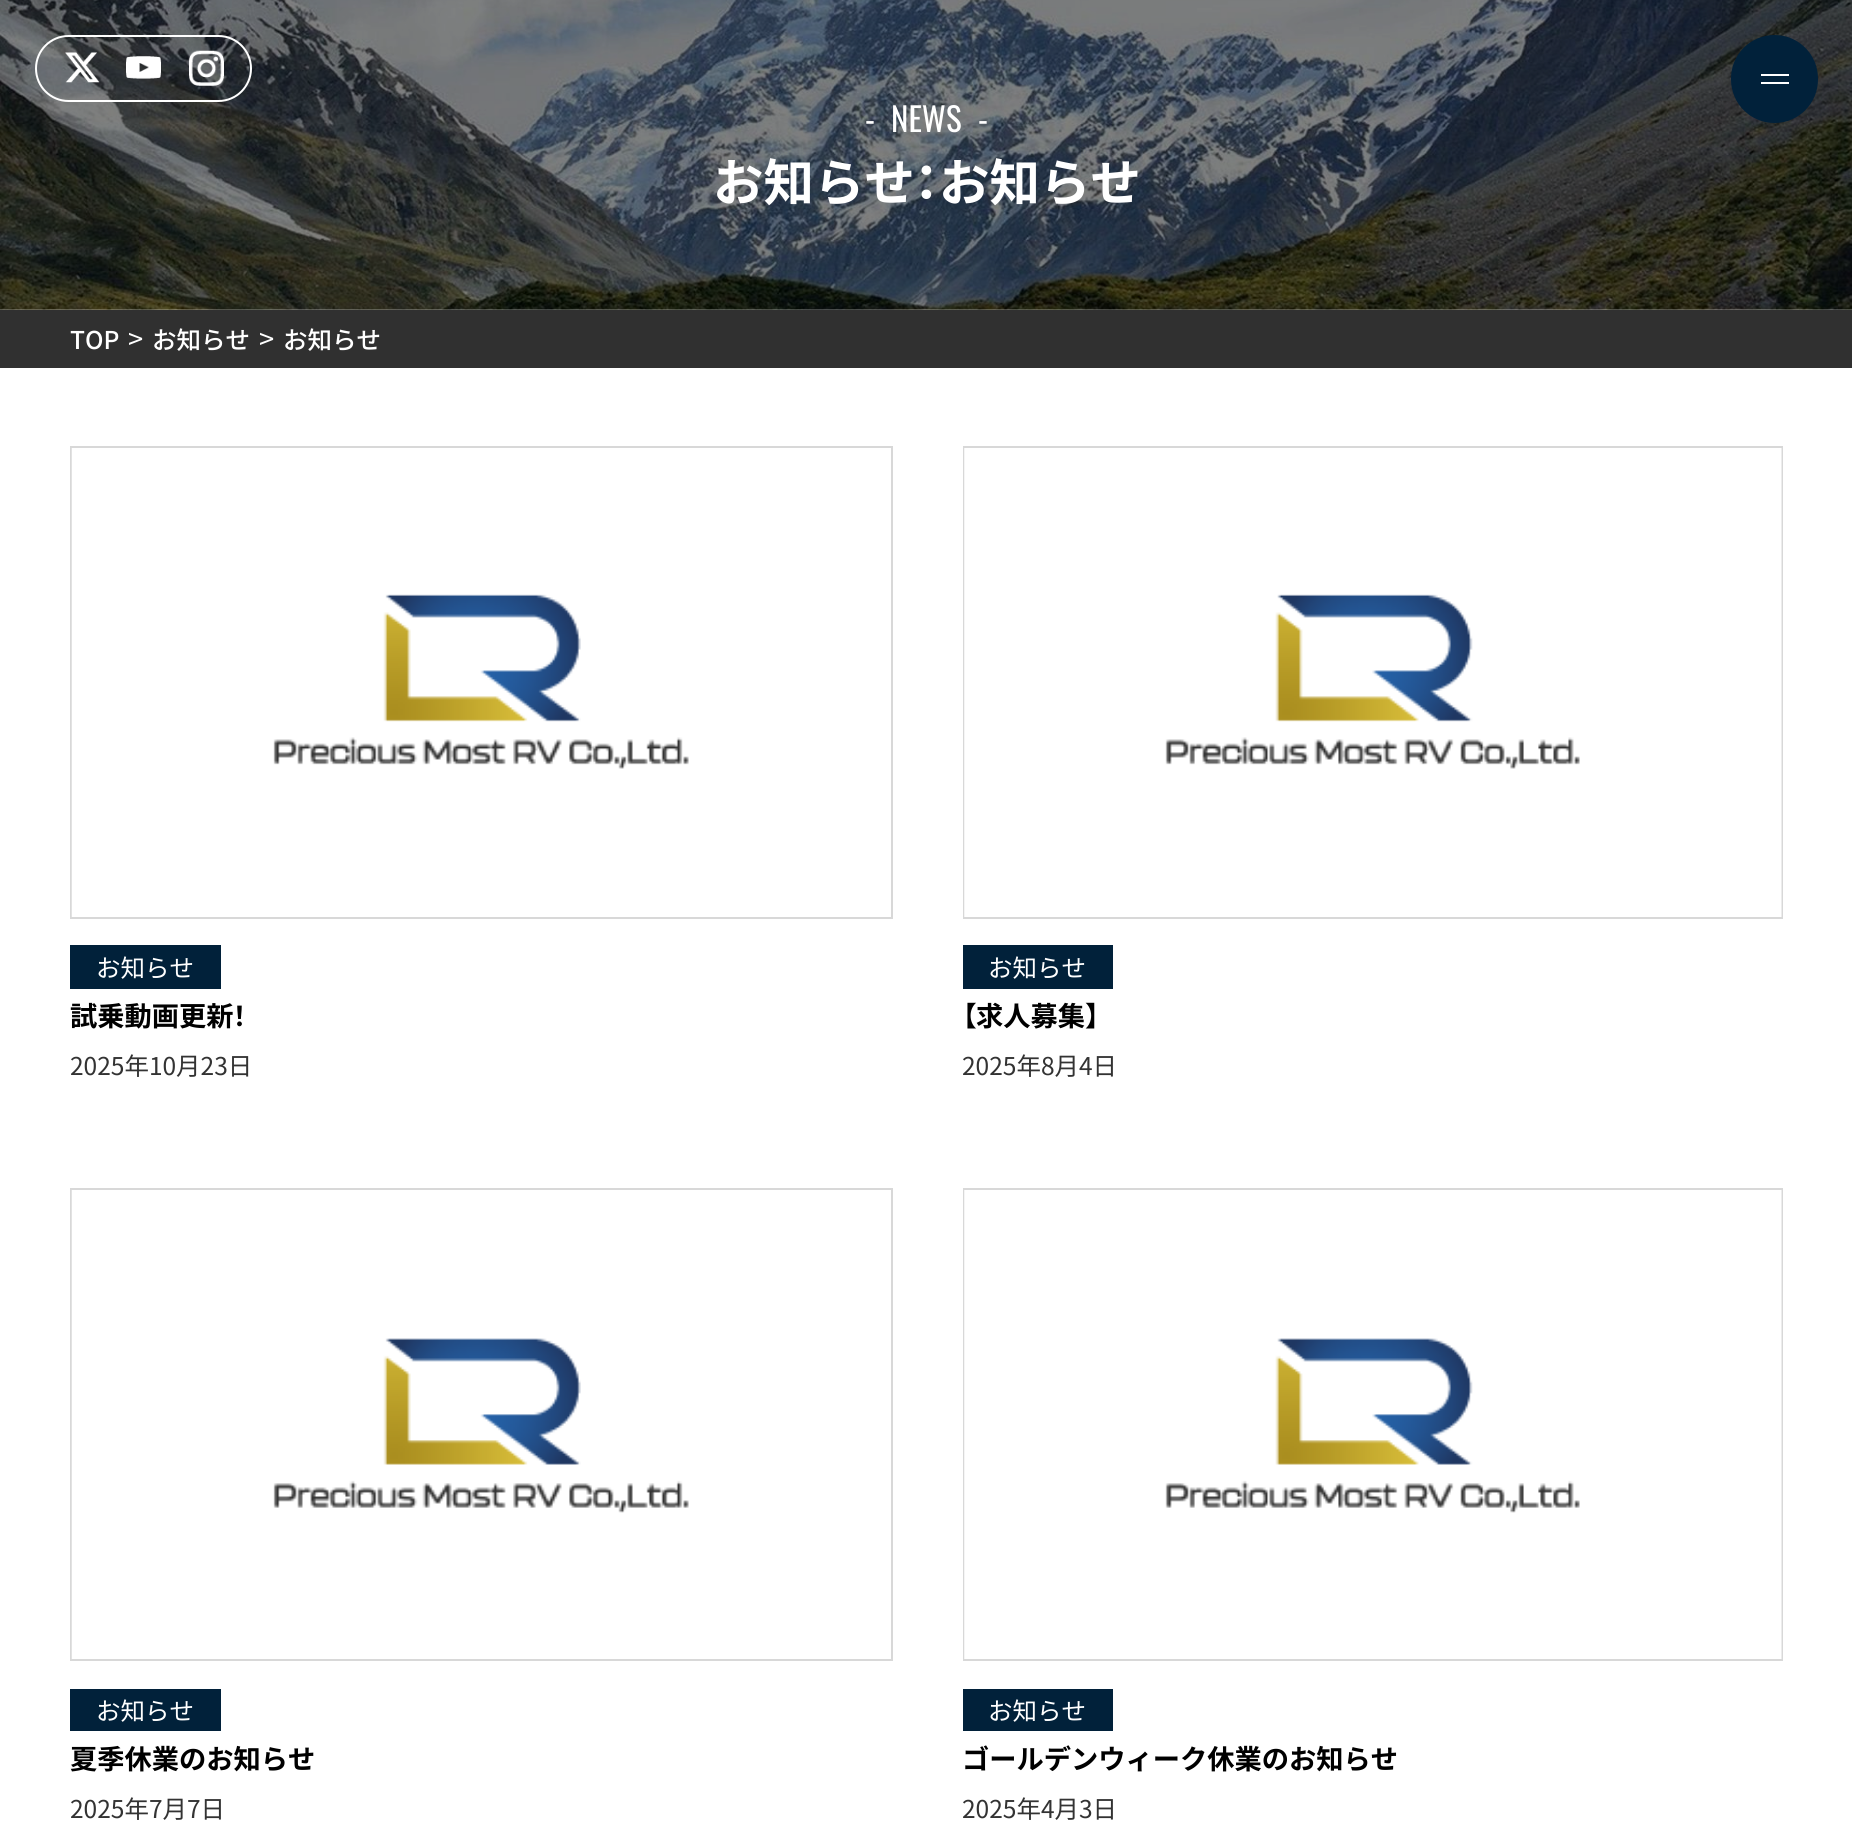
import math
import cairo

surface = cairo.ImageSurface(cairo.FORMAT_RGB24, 1852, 1839)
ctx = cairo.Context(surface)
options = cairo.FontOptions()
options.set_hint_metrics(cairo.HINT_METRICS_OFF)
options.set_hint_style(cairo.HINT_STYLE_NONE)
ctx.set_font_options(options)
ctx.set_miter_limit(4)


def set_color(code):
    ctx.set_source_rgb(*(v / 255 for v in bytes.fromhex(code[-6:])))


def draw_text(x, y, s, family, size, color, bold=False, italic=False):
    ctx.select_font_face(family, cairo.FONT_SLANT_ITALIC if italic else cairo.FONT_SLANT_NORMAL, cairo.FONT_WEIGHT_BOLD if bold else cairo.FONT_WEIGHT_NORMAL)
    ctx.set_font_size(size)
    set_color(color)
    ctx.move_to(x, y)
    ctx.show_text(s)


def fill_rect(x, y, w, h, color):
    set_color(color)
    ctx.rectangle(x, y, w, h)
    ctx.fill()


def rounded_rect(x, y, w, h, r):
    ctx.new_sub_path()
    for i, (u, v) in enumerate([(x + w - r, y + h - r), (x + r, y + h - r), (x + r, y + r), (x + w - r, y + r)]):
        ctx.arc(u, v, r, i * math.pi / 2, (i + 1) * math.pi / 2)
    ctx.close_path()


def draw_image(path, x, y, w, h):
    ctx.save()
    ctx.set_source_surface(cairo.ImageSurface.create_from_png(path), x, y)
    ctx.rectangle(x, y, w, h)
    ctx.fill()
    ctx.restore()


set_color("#ffffff")
ctx.paint()
draw_image("assets/img4.png", 0, 0, 1852, 310)
rounded_rect(36, 36, 215, 65, 32.5)
set_color("#ffffff")
ctx.stroke()
draw_image("assets/img1.png", 65, 52, 35, 31)
draw_image("assets/img2.png", 126, 56, 35, 23)
draw_image("assets/img3.png", 189, 50, 35, 36)
set_color("#01213a")
rounded_rect(1731, 35, 87, 88, 43.5)
ctx.fill()
fill_rect(1761, 74, 28, 2, "#ffffff")
fill_rect(1761, 82, 28, 2, "#ffffff")
draw_text(865, 132, "-", "Oswald", 33, "#ffffff")
draw_text(891, 132, "NEWS", "Oswald", 33, "#ffffff")
draw_text(978, 132, "-", "Oswald", 33, "#ffffff")
draw_text(713, 201, "お知らせ", "Noto Sans JP", 50.5, "#ffffff", bold=True)
draw_text(914, 201, "：", "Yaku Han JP", 50.5, "#ffffff", bold=True)
draw_text(939, 201, "お知らせ", "Noto Sans JP", 50.5, "#ffffff", bold=True)
fill_rect(0, 310, 1852, 58, "#303030")
draw_text(70, 349, "TOP", "Noto Sans JP Medium", 24.5, "#ffffff")
draw_text(128, 349, ">", "Noto Sans JP", 27.25, "#ffffff")
draw_text(152, 349, "お知らせ", "Noto Sans JP Medium", 24.5, "#ffffff")
draw_text(259, 349, ">", "Noto Sans JP", 27.25, "#ffffff")
draw_text(283, 349, "お知らせ", "Noto Sans JP Medium", 24.5, "#ffffff")
ctx.rectangle(71, 447, 821, 471)
set_color("#d8d8d8")
ctx.stroke()
draw_image("assets/img5.png", 71, 448, 618, 469)
fill_rect(70, 945, 151, 44, "#01213a")
draw_text(96, 977, "お知らせ", "Noto Sans JP", 24.5, "#ffffff")
draw_text(70, 1026, "試乗動画更新", "Noto Sans JP", 27.25, "#000000", bold=True)
draw_text(233, 1026, "！", "Yaku Han JP", 27.25, "#000000", bold=True)
draw_text(70, 1075, "2025年10月23日", "Noto Sans JP", 24.5, "#333333")
ctx.rectangle(964, 447, 818, 471)
set_color("#d8d8d8")
ctx.stroke()
draw_image("assets/img6.png", 964, 448, 818, 469)
fill_rect(963, 945, 150, 44, "#01213a")
draw_text(988, 977, "お知らせ", "Noto Sans JP", 24.5, "#ffffff")
draw_text(962, 1026, "【", "Yaku Han JP", 27.25, "#000000", bold=True)
draw_text(976, 1026, "求人募集", "Noto Sans JP", 27.25, "#000000", bold=True)
draw_text(1085, 1026, "】", "Yaku Han JP", 27.25, "#000000", bold=True)
draw_text(962, 1075, "2025年8月4日", "Noto Sans JP", 24.5, "#333333")
ctx.rectangle(71, 1189, 821, 471)
set_color("#d8d8d8")
ctx.stroke()
draw_image("assets/img7.png", 71, 1190, 618, 469)
fill_rect(70, 1689, 151, 42, "#01213a")
draw_text(96, 1720, "お知らせ", "Noto Sans JP", 24.5, "#ffffff")
draw_text(70, 1769, "夏季休業のお知らせ", "Noto Sans JP", 27.25, "#000000", bold=True)
draw_text(70, 1818, "2025年7月7日", "Noto Sans JP", 24.5, "#333333")
ctx.rectangle(964, 1189, 818, 471)
set_color("#d8d8d8")
ctx.stroke()
draw_image("assets/img8.png", 964, 1190, 818, 469)
fill_rect(963, 1689, 150, 42, "#01213a")
draw_text(988, 1720, "お知らせ", "Noto Sans JP", 24.5, "#ffffff")
draw_text(962, 1769, "ゴールデンウィーク休業のお知らせ", "Noto Sans JP", 27.25, "#000000", bold=True)
draw_text(962, 1818, "2025年4月3日", "Noto Sans JP", 24.5, "#333333")
surface.write_to_png("output.png")
